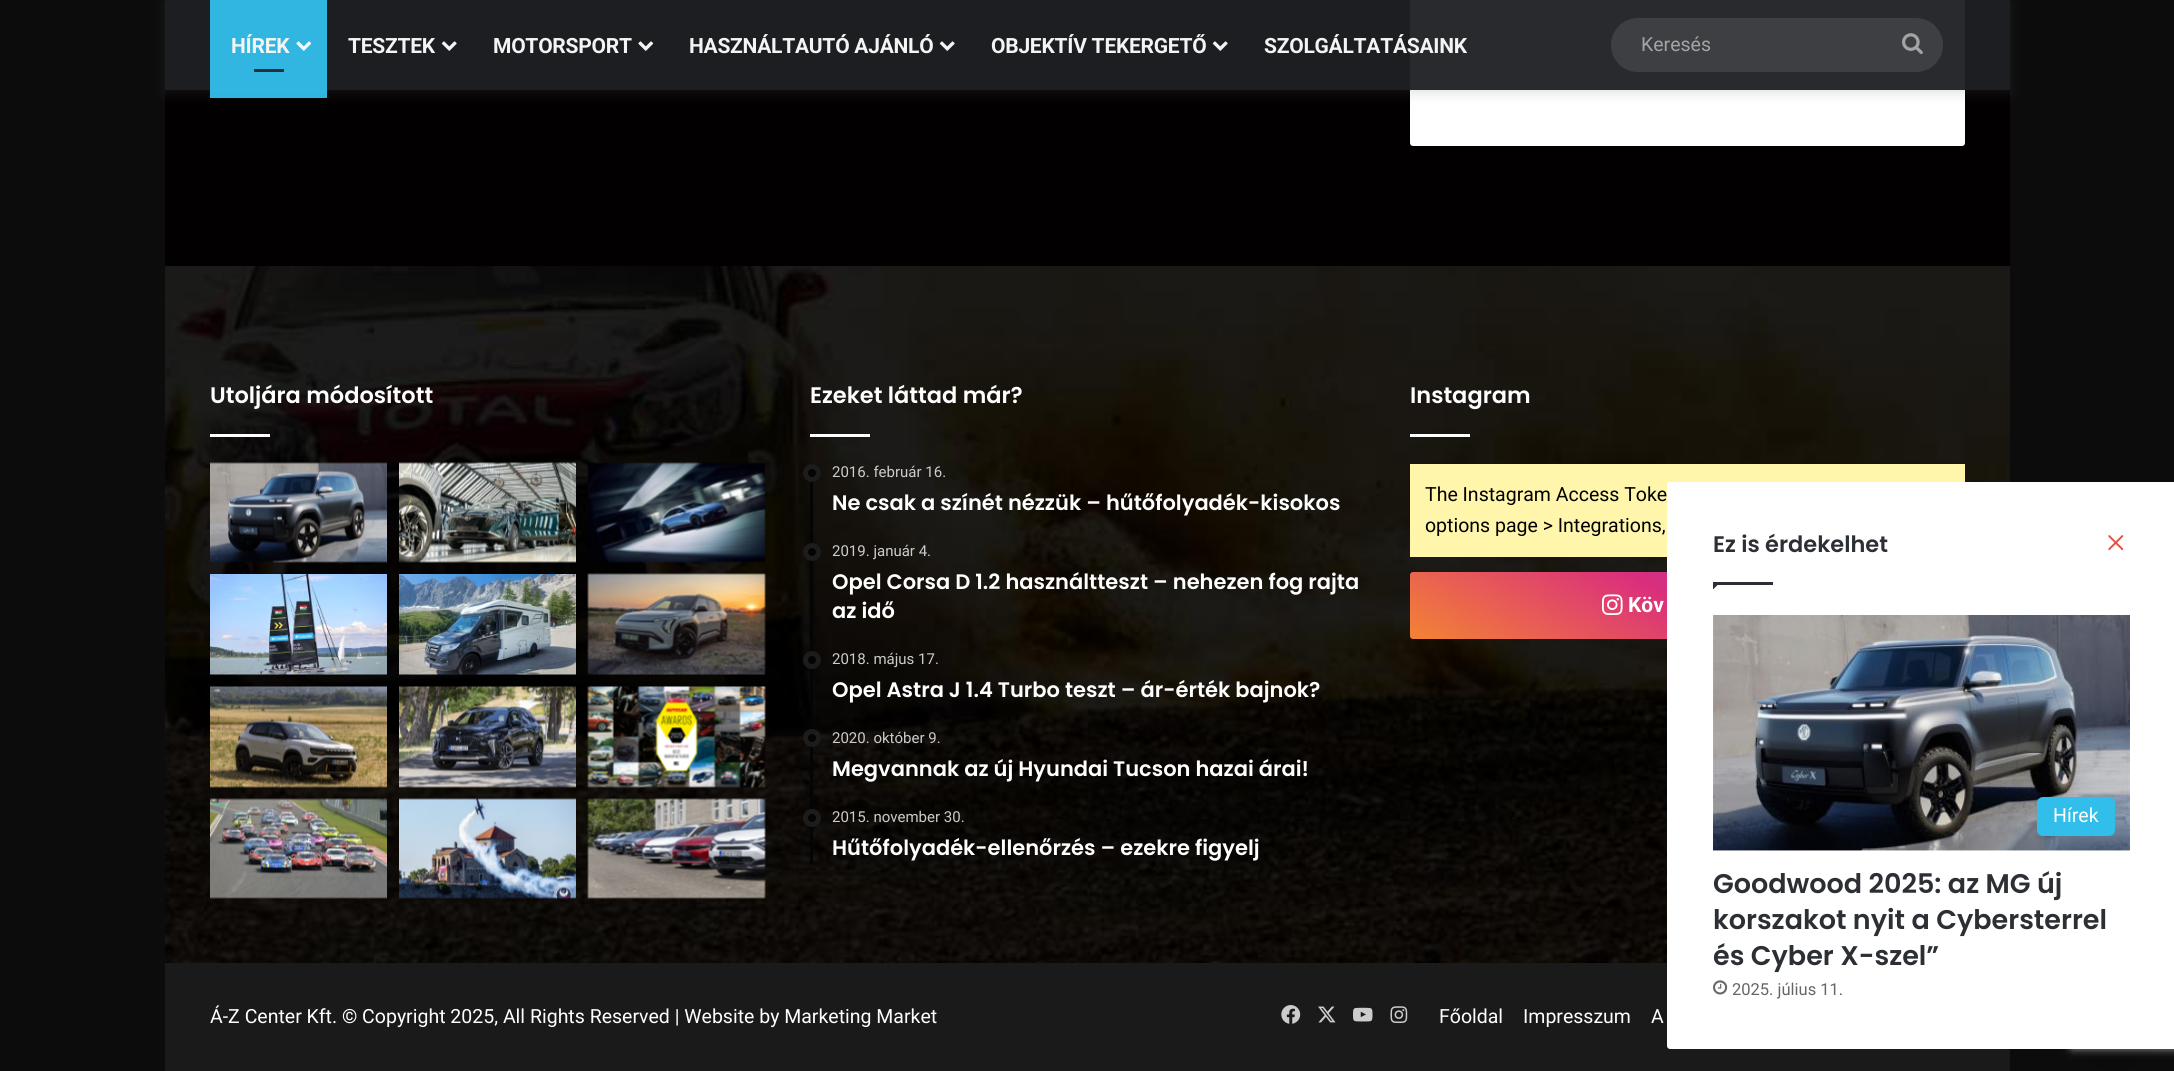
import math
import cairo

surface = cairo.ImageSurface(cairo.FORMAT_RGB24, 2174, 1071)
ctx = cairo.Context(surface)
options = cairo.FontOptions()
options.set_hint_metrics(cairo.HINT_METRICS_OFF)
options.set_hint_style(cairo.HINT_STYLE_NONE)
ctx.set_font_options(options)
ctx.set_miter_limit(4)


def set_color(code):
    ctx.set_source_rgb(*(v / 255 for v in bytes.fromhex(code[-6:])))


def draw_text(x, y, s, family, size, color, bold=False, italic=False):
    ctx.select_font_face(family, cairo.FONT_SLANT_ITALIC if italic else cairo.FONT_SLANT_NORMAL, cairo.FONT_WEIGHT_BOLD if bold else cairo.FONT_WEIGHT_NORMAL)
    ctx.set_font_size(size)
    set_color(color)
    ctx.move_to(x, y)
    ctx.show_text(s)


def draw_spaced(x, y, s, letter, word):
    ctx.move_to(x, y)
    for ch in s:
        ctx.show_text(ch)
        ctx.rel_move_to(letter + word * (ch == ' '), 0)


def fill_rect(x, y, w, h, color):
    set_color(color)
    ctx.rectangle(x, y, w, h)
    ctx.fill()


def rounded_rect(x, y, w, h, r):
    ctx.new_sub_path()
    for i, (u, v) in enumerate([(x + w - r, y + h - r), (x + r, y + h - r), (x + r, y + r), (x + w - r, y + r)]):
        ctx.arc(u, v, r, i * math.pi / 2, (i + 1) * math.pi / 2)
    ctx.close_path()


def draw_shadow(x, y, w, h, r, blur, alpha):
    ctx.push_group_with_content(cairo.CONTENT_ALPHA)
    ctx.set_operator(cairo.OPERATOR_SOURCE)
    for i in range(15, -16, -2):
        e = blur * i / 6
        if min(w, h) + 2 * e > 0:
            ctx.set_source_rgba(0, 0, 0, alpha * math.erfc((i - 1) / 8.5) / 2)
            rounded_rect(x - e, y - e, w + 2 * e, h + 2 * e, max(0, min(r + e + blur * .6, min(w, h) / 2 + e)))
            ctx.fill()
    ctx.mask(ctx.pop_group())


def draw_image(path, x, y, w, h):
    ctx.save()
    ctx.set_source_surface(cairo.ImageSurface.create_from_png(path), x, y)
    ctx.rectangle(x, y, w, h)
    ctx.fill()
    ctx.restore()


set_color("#0c0c0c")
ctx.paint()
fill_rect(165, 0, 1845, 266, "#020000")
set_color("#ffffff")
rounded_rect(1411, -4, 553, 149, 2)
ctx.fill_preserve()
ctx.stroke()
ctx.save()
ctx.set_fill_rule(cairo.FILL_RULE_EVEN_ODD)
ctx.new_path()
ctx.move_to(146, 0)
ctx.line_to(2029, 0)
ctx.line_to(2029, 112)
ctx.line_to(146, 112)
ctx.close_path()
ctx.move_to(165, 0)
ctx.line_to(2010, 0)
ctx.line_to(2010, 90)
ctx.line_to(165, 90)
ctx.close_path()
ctx.clip()
set_color("#636363")
draw_shadow(165, 3, 1845, 90, 0, 6, 0.2)
ctx.restore()
ctx.set_source_rgba(0.122, 0.125, 0.141, 0.95)
ctx.rectangle(165, 0, 1845, 90)
ctx.fill()
ctx.set_source_rgba(0.196, 0.745, 0.922, 0.95)
ctx.rectangle(210, 90, 117, 8)
ctx.fill()
fill_rect(210, 0, 117, 90, "#31b6e1")
ctx.select_font_face("Roboto", cairo.FONT_SLANT_NORMAL, cairo.FONT_WEIGHT_BOLD)
ctx.set_font_size(21)
set_color("#f4f4f4")
draw_spaced(231, 53, "HÍREK", -0.25, 0)
draw_image("assets/img1.png", 296, 41, 16, 10)
fill_rect(254, 69, 30, 3, "#2b2e33")
set_color("#f4f4f4")
draw_spaced(348, 53, "TESZTEK", -0.25, 0)
draw_image("assets/img2.png", 441, 41, 16, 10)
draw_spaced(493, 53, "MOTORSPORT", -0.25, 0)
draw_image("assets/img3.png", 638, 41, 16, 10)
draw_spaced(689, 53, "HASZNÁLTAUTÓ AJÁNLÓ", -0.25, 0)
draw_image("assets/img2.png", 939, 41, 16, 10)
draw_spaced(991, 53, "OBJEKTÍV TEKERGETŐ", -0.25, 0)
draw_image("assets/img2.png", 1212, 41, 16, 10)
draw_spaced(1264, 53, "SZOLGÁLTATÁSAINK", -0.25, 0)
set_color("#3e3f43")
rounded_rect(1611, 18, 332, 54, 27)
ctx.fill()
draw_text(1641, 51, "Keresés", "Roboto", 19.5, "#a4a4a4")
draw_image("assets/img4.png", 1902, 33, 21, 22)
draw_image("assets/img5.png", 165, 266, 1845, 697)
draw_text(210, 403, "Utoljára módosított", "Poppins SemiBold", 22.5, "#ffffff")
fill_rect(210, 434, 60, 3, "#ffffff")
draw_image("assets/img6.png", 210, 462, 177, 101)
draw_image("assets/img7.png", 399, 462, 177, 101)
draw_image("assets/img8.png", 587, 462, 179, 101)
draw_image("assets/img9.png", 210, 574, 177, 101)
draw_image("assets/img10.png", 399, 574, 177, 101)
draw_image("assets/img11.png", 587, 573, 179, 102)
draw_image("assets/img12.png", 210, 686, 177, 102)
draw_image("assets/img13.png", 399, 686, 177, 102)
draw_image("assets/img14.png", 587, 686, 179, 102)
draw_image("assets/img15.png", 210, 798, 177, 101)
draw_image("assets/img16.png", 399, 798, 177, 101)
draw_image("assets/img17.png", 587, 798, 179, 101)
draw_text(810, 403, "Ezeket láttad már?", "Poppins SemiBold", 22.5, "#ffffff")
fill_rect(810, 434, 60, 3, "#ffffff")
fill_rect(810, 464, 3, 400, "#040404")
ctx.new_path()
ctx.arc(812, 473, 9, 0, 2 * math.pi)
ctx.fill()
ctx.arc(812, 473, 6.5, 0, 2 * math.pi)
ctx.set_source_rgba(0.133, 0.133, 0.133, 0.8)
ctx.set_line_width(5)
ctx.stroke()
draw_text(832, 477, "2016. február 16.", "Roboto", 15, "#cccccc")
draw_text(832, 510, "Ne csak a színét nézzük – hűtőfolyadék-kisokos", "Poppins SemiBold", 21, "#ffffff")
set_color("#040404")
ctx.new_path()
ctx.arc(812, 552, 9, 0, 2 * math.pi)
ctx.fill()
ctx.arc(812, 552, 6.5, 0, 2 * math.pi)
ctx.set_source_rgba(0.133, 0.133, 0.133, 0.8)
ctx.stroke()
draw_text(832, 556, "2019. január 4.", "Roboto", 15, "#cccccc")
draw_text(832, 589, "Opel Corsa D 1.2 használtteszt – nehezen fog rajta", "Poppins SemiBold", 21, "#ffffff")
draw_text(832, 618, "az idő", "Poppins SemiBold", 21, "#ffffff")
set_color("#040404")
ctx.new_path()
ctx.arc(812, 660, 9, 0, 2 * math.pi)
ctx.fill()
ctx.arc(812, 660, 6.5, 0, 2 * math.pi)
ctx.set_source_rgba(0.133, 0.133, 0.133, 0.8)
ctx.stroke()
draw_text(832, 664, "2018. május 17.", "Roboto", 15, "#cccccc")
draw_text(832, 697, "Opel Astra J 1.4 Turbo teszt – ár-érték bajnok?", "Poppins SemiBold", 21, "#ffffff")
set_color("#040404")
ctx.new_path()
ctx.arc(812, 738, 9, 0, 2 * math.pi)
ctx.fill()
ctx.arc(812, 738, 6.5, 0, 2 * math.pi)
ctx.set_source_rgba(0.133, 0.133, 0.133, 0.8)
ctx.stroke()
draw_text(832, 743, "2020. október 9.", "Roboto", 15, "#cccccc")
draw_text(832, 776, "Megvannak az új Hyundai Tucson hazai árai!", "Poppins SemiBold", 21, "#ffffff")
set_color("#040404")
ctx.new_path()
ctx.arc(812, 818, 9, 0, 2 * math.pi)
ctx.fill()
ctx.arc(812, 818, 6.5, 0, 2 * math.pi)
ctx.set_source_rgba(0.133, 0.133, 0.133, 0.8)
ctx.stroke()
draw_text(832, 822, "2015. november 30.", "Roboto", 15, "#cccccc")
draw_text(832, 855, "Hűtőfolyadék-ellenőrzés – ezekre figyelj", "Poppins SemiBold", 21, "#ffffff")
draw_text(1410, 403, "Instagram", "Poppins SemiBold", 22.5, "#ffffff")
fill_rect(1410, 434, 60, 3, "#ffffff")
fill_rect(1410, 464, 555, 93, "#fff6ac")
draw_text(1425, 501, "The Instagram Access Toke", "Roboto", 19.5, "#000000")
draw_text(1425, 532, "options page > Integrations,", "Roboto", 19.5, "#000000")
gradient = cairo.LinearGradient(1605, 750, 1770, 461)
gradient.add_color_stop_rgba(0, 0.953, 0.514, 0.204, 1)
gradient.add_color_stop_rgba(0.5, 0.855, 0.18, 0.49, 1)
gradient.add_color_stop_rgba(1, 0.42, 0.329, 0.776, 1)
ctx.set_source(gradient)
rounded_rect(1410, 572, 555, 67, 3)
ctx.fill()
draw_image("assets/img18.png", 1602, 594, 21, 21)
draw_text(1628, 612, "Köv", "Roboto", 21, "#ffffff", bold=True)
fill_rect(165, 963, 1845, 108, "#1a1a1a")
draw_text(210, 1023, "Á-Z Center Kft. © Copyright 2025, All Rights Reserved | Website by Marketing Market", "Roboto", 19.5, "#ffffff")
draw_image("assets/img19.png", 1281, 1005, 20, 19)
draw_image("assets/img20.png", 1318, 1006, 18, 17)
draw_image("assets/img21.png", 1353, 1007, 20, 15)
draw_image("assets/img22.png", 1390, 1006, 18, 17)
draw_text(1439, 1023, "Főoldal", "Roboto", 19.5, "#ffffff")
draw_text(1523, 1023, "Impresszum", "Roboto", 19.5, "#ffffff")
draw_text(1651, 1023, "A", "Roboto", 19.5, "#ffffff")
set_color("#000000")
draw_shadow(2082, 986, 63, 63, 31.5, 19, 0.3)
set_color("#808080")
draw_shadow(2070, 960, 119, 90, 3, 4, 1)
set_color("#ffffff")
ctx.new_path()
ctx.move_to(1670, 483)
ctx.line_to(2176, 483)
ctx.line_to(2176, 1048)
ctx.line_to(1670, 1048)
ctx.curve_to(1669, 1048, 1668, 1047, 1668, 1046)
ctx.line_to(1668, 485)
ctx.curve_to(1668, 484, 1669, 483, 1670, 483)
ctx.close_path()
ctx.fill_preserve()
ctx.set_line_width(2)
ctx.stroke()
draw_text(1713, 552, "Ez is érdekelhet", "Poppins SemiBold", 22.5, "#2c2f34")
draw_image("assets/img23.png", 2108, 535, 16, 16)
ctx.new_path()
ctx.move_to(1713, 582)
ctx.line_to(1720.5, 582)
ctx.line_to(1713, 589.5)
ctx.close_path()
ctx.fill()
fill_rect(1713, 582, 60, 3, "#2c2f34")
draw_image("assets/img24.png", 1713, 615, 417, 236)
set_color("#32beeb")
rounded_rect(2037, 797, 78, 39, 6)
ctx.fill()
draw_text(2053, 822, "Hírek", "Roboto", 19.5, "#ffffff")
draw_text(1713, 893, "Goodwood 2025: az MG új", "Poppins SemiBold", 27, "#2c2f34")
draw_text(1713, 929, "korszakot nyit a Cybersterrel", "Poppins SemiBold", 27, "#2c2f34")
draw_text(1713, 965, "és Cyber X-szel”", "Poppins SemiBold", 27, "#2c2f34")
draw_image("assets/img25.png", 1713, 980, 15, 15)
draw_text(1732, 995, "2025. július 11.", "Roboto", 16.5, "#666666")
surface.write_to_png("output.png")
